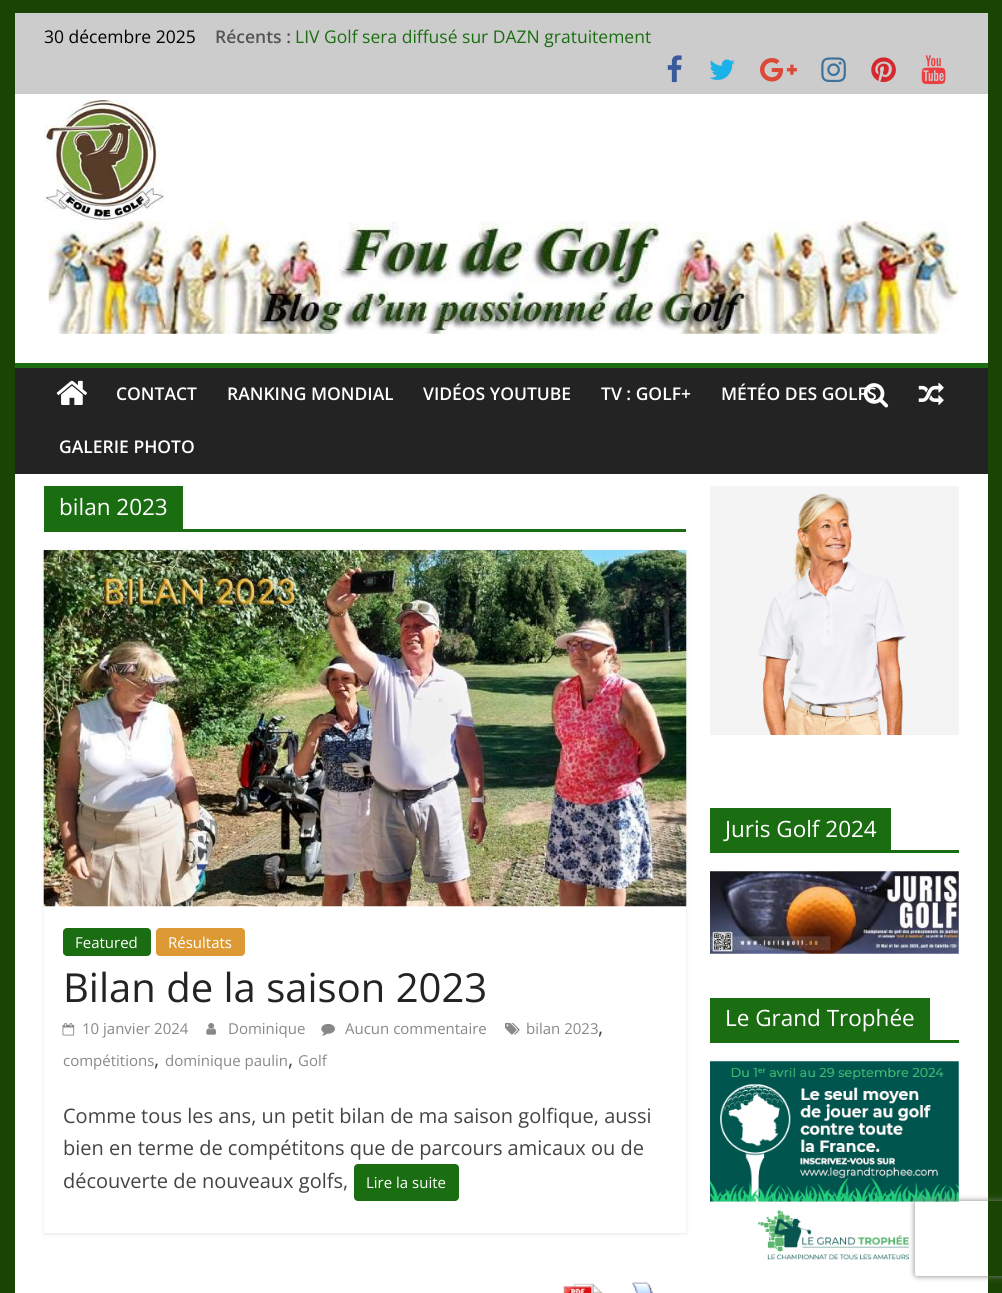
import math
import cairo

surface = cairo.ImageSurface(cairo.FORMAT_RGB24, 1002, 1293)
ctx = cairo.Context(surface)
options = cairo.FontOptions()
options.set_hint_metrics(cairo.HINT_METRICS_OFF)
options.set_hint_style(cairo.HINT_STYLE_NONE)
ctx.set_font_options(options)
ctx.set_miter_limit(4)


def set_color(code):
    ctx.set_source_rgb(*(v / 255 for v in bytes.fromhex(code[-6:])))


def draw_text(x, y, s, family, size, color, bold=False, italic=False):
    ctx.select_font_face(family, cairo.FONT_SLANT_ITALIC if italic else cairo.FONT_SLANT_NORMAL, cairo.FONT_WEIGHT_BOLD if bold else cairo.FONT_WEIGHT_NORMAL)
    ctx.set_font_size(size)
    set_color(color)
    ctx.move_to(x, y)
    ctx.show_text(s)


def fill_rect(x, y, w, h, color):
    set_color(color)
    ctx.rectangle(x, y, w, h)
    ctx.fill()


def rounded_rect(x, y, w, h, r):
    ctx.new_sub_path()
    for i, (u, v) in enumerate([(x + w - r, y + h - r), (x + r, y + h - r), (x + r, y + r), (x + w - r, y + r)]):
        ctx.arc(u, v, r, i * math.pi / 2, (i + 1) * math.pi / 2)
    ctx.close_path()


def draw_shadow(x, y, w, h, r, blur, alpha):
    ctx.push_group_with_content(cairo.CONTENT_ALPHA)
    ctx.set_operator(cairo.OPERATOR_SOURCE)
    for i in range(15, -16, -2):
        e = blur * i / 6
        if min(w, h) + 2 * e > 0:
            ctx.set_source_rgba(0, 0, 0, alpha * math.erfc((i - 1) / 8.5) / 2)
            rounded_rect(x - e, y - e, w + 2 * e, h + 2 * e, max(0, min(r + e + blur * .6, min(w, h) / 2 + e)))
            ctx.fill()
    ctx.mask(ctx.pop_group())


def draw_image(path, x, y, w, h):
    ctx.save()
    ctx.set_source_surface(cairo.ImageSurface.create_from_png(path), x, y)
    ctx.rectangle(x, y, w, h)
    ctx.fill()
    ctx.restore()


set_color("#1a4404")
ctx.paint()
fill_rect(15, 94, 973, 269, "#ffffff")
fill_rect(15, 13, 973, 81, "#cccccc")
draw_text(44, 43, "30 décembre 2025", "Open Sans", 17.5, "#000000")
draw_text(215, 43, "Récents :", "Open Sans SemiBold", 17.5, "#555555")
draw_text(295, 43, "LIV Golf sera diffusé sur DAZN gratuitement", "Open Sans", 17.5, "#1b6d12")
draw_image("assets/img1.png", 667, 55, 15, 28)
draw_image("assets/img2.png", 709, 59, 26, 21)
draw_image("assets/img3.png", 760, 58, 37, 24)
draw_image("assets/img4.png", 821, 57, 25, 26)
draw_image("assets/img5.png", 871, 57, 25, 26)
draw_image("assets/img6.png", 921, 55, 25, 30)
draw_image("assets/img7.png", 43, 100, 122, 122)
draw_image("assets/img8.png", 48, 221, 911, 113)
fill_rect(15, 368, 973, 106, "#232323")
fill_rect(15, 363, 973, 5, "#1b6d12")
draw_image("assets/img9.png", 56, 380, 31, 25)
draw_image("assets/img10.png", 918, 382, 26, 23)
draw_text(116, 400, "CONTACT", "Open Sans SemiBold", 17.5, "#ffffff")
draw_text(227, 400, "RANKING MONDIAL", "Open Sans SemiBold", 17.5, "#ffffff")
draw_text(423, 400, "VIDÉOS YOUTUBE", "Open Sans SemiBold", 17.5, "#ffffff")
draw_text(601, 400, "TV : GOLF+", "Open Sans SemiBold", 17.5, "#ffffff")
draw_text(721, 400, "MÉTÉO DES GOLFS", "Open Sans SemiBold", 17.5, "#ffffff")
draw_text(59, 453, "GALERIE PHOTO", "Open Sans SemiBold", 17.5, "#ffffff")
draw_image("assets/img11.png", 863, 383, 26, 25)
fill_rect(15, 474, 973, 819, "#ffffff")
fill_rect(44, 529, 642, 3, "#1b6d12")
fill_rect(44, 486, 139, 43, "#1b6d12")
draw_text(59, 515, "bilan 2023", "Open Sans", 22.5, "#ffffff")
ctx.save()
ctx.set_fill_rule(cairo.FILL_RULE_EVEN_ODD)
ctx.new_path()
ctx.move_to(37, 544)
ctx.line_to(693, 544)
ctx.line_to(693, 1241)
ctx.line_to(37, 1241)
ctx.close_path()
ctx.move_to(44, 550)
ctx.line_to(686, 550)
ctx.line_to(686, 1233)
ctx.line_to(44, 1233)
ctx.close_path()
ctx.clip()
set_color("#000000")
draw_shadow(44, 551, 642, 683, 0, 2, 0.1)
ctx.restore()
draw_image("assets/img12.png", 43, 550, 644, 357)
set_color("#1b6d12")
rounded_rect(63, 928, 88, 28, 4)
ctx.fill()
draw_text(75, 948, "Featured", "Open Sans", 15, "#ffffff")
set_color("#dd9933")
rounded_rect(156, 928, 89, 28, 4)
ctx.fill()
draw_text(168, 948, "Résultats", "Open Sans", 15, "#ffffff")
draw_text(63, 1002, "Bilan de la saison 2023", "Open Sans", 40, "#232323")
draw_image("assets/img13.png", 505, 1022, 15, 13)
draw_text(526, 1034, "bilan 2023", "Open Sans", 15, "#888888")
draw_text(598, 1034, ",", "Open Sans", 20, "#444444")
draw_text(63, 1066, "compétitions", "Open Sans", 15, "#888888")
draw_text(154, 1066, ",", "Open Sans", 20, "#444444")
draw_text(165, 1066, "dominique paulin", "Open Sans", 15, "#888888")
draw_text(288, 1066, ",", "Open Sans", 20, "#444444")
draw_text(298, 1066, "Golf", "Open Sans", 15, "#888888")
draw_image("assets/img14.png", 62, 1023, 13, 13)
draw_text(82, 1034, "10 janvier 2024", "Open Sans", 15, "#888888")
draw_image("assets/img15.png", 206, 1023, 11, 12)
draw_text(228, 1034, "Dominique", "Open Sans", 15, "#888888")
draw_image("assets/img16.png", 321, 1023, 14, 13)
draw_text(345, 1034, "Aucun commentaire", "Open Sans", 15, "#888888")
draw_text(63, 1123, "Comme tous les ans, un petit bilan de ma saison golfique, aussi", "Open Sans", 20, "#444444")
draw_text(63, 1155, "bien en terme de compétitons que de parcours amicaux ou de", "Open Sans", 20, "#444444")
draw_text(63, 1188, "découverte de nouveaux golfs,", "Open Sans", 20, "#444444")
set_color("#1b6d12")
rounded_rect(354, 1164, 105, 37, 4)
ctx.fill()
draw_text(366, 1188, "Lire la suite", "Open Sans", 15, "#ffffff")
draw_image("assets/img17.png", 563, 1283, 40, 10)
draw_image("assets/img18.png", 632, 1282, 21, 11)
draw_image("assets/img19.png", 710, 486, 249, 249)
fill_rect(710, 850, 249, 3, "#1b6d12")
fill_rect(710, 808, 181, 42, "#1b6d12")
draw_text(725, 837, "Juris Golf 2024", "Open Sans", 22.5, "#ffffff")
draw_image("assets/img20.png", 710, 871, 249, 83)
fill_rect(710, 1040, 249, 3, "#1b6d12")
fill_rect(710, 998, 220, 42, "#1b6d12")
draw_text(725, 1026, "Le Grand Trophée", "Open Sans", 22.5, "#ffffff")
draw_image("assets/img21.png", 710, 1061, 249, 199)
ctx.save()
ctx.set_fill_rule(cairo.FILL_RULE_EVEN_ODD)
ctx.new_path()
ctx.move_to(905, 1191)
ctx.line_to(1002, 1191)
ctx.line_to(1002, 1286)
ctx.line_to(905, 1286)
ctx.close_path()
ctx.move_to(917.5, 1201)
ctx.line_to(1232.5, 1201)
ctx.curve_to(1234, 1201, 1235, 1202, 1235, 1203.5)
ctx.line_to(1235, 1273.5)
ctx.curve_to(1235, 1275, 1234, 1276, 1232.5, 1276)
ctx.line_to(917.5, 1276)
ctx.curve_to(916, 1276, 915, 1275, 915, 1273.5)
ctx.line_to(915, 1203.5)
ctx.curve_to(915, 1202, 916, 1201, 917.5, 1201)
ctx.close_path()
ctx.clip()
set_color("#808080")
draw_shadow(915, 1201, 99, 75, 2.5, 3, 1)
ctx.restore()
surface.write_to_png("output.png")
